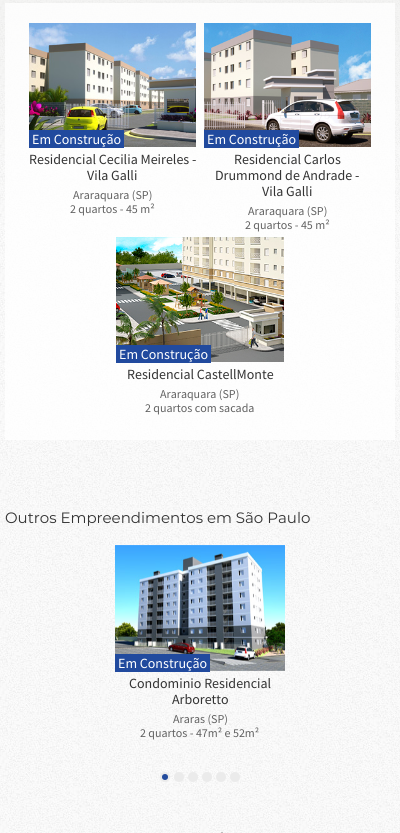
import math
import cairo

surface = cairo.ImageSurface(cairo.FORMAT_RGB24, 400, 833)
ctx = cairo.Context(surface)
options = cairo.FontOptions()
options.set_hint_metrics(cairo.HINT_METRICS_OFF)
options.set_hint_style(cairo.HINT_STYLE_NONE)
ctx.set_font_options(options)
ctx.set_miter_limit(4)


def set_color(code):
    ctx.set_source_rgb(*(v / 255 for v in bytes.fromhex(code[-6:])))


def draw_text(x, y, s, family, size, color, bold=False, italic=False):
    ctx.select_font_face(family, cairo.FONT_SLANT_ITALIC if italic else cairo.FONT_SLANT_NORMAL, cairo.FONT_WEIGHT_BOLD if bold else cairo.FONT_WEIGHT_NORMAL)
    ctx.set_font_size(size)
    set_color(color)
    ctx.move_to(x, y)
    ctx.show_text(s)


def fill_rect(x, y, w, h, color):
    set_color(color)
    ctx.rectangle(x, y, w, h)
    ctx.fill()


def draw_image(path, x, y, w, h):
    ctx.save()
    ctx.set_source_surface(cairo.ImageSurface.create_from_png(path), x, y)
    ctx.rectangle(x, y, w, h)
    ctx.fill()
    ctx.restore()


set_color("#ffffff")
ctx.paint()
draw_image("assets/img1.png", 0, 0, 400, 833)
ctx.set_source_rgba(1, 1, 1, 0.8)
ctx.rectangle(5, 3, 390, 437)
ctx.fill()
draw_image("assets/img2.png", 29, 23, 167, 124)
fill_rect(29, 130, 95, 18, "#214a9e")
draw_text(32, 144, "Em Construção", "Source Sans Pro", 14, "#ffffff")
draw_text(29, 164, "Residencial Cecilia Meireles -", "Source Sans Pro", 14, "#333333")
draw_text(87, 180, "Vila Galli", "Source Sans Pro", 14, "#333333")
draw_text(73, 199, "Araraquara (SP)", "Source Sans Pro", 12, "#616161")
draw_text(70, 213, "2 quartos - 45 m²", "Source Sans Pro", 12, "#616161")
draw_image("assets/img3.png", 204, 23, 167, 124)
fill_rect(204, 130, 95, 18, "#214a9e")
draw_text(207, 144, "Em Construção", "Source Sans Pro", 14, "#ffffff")
draw_text(234, 164, "Residencial Carlos", "Source Sans Pro", 14, "#333333")
draw_text(215, 180, "Drummond de Andrade -", "Source Sans Pro", 14, "#333333")
draw_text(262, 196, "Vila Galli", "Source Sans Pro", 14, "#333333")
draw_text(248, 215, "Araraquara (SP)", "Source Sans Pro", 12, "#616161")
draw_text(245, 229, "2 quartos - 45 m²", "Source Sans Pro", 12, "#616161")
draw_image("assets/img4.png", 116, 237, 168, 125)
fill_rect(116, 345, 95, 18, "#214a9e")
draw_text(119, 359, "Em Construção", "Source Sans Pro", 14, "#ffffff")
draw_text(127, 379, "Residencial CastellMonte", "Source Sans Pro", 14, "#333333")
draw_text(160, 398, "Araraquara (SP)", "Source Sans Pro", 12, "#616161")
draw_text(145, 412, "2 quartos com sacada", "Source Sans Pro", 12, "#616161")
draw_text(5, 523, "Outros Empreendimentos em São Paulo", "Montserrat Thin", 15, "#333333")
draw_image("assets/img5.png", 115, 545, 170, 126)
fill_rect(115, 654, 95, 18, "#214a9e")
draw_text(118, 668, "Em Construção", "Source Sans Pro", 14, "#ffffff")
draw_text(129, 688, "Condominio Residencial", "Source Sans Pro", 14, "#333333")
draw_text(172, 704, "Arboretto", "Source Sans Pro", 14, "#333333")
draw_text(173, 723, "Araras (SP)", "Source Sans Pro", 12, "#616161")
draw_text(140, 737, "2 quartos - 47m² e 52m²", "Source Sans Pro", 12, "#616161")
set_color("#234b9d")
ctx.new_path()
ctx.arc(165, 777, 4, 0, 2 * math.pi)
ctx.fill_preserve()
set_color("#ebebeb")
ctx.stroke()
ctx.arc(179, 777, 5, 0, 2 * math.pi)
ctx.fill()
ctx.arc(193, 777, 5, 0, 2 * math.pi)
ctx.fill()
ctx.arc(207, 777, 5, 0, 2 * math.pi)
ctx.fill()
ctx.arc(221, 777, 5, 0, 2 * math.pi)
ctx.fill()
ctx.arc(235, 777, 5, 0, 2 * math.pi)
ctx.fill()
fill_rect(221, 832, 2, 1, "#bebebe")
surface.write_to_png("output.png")
